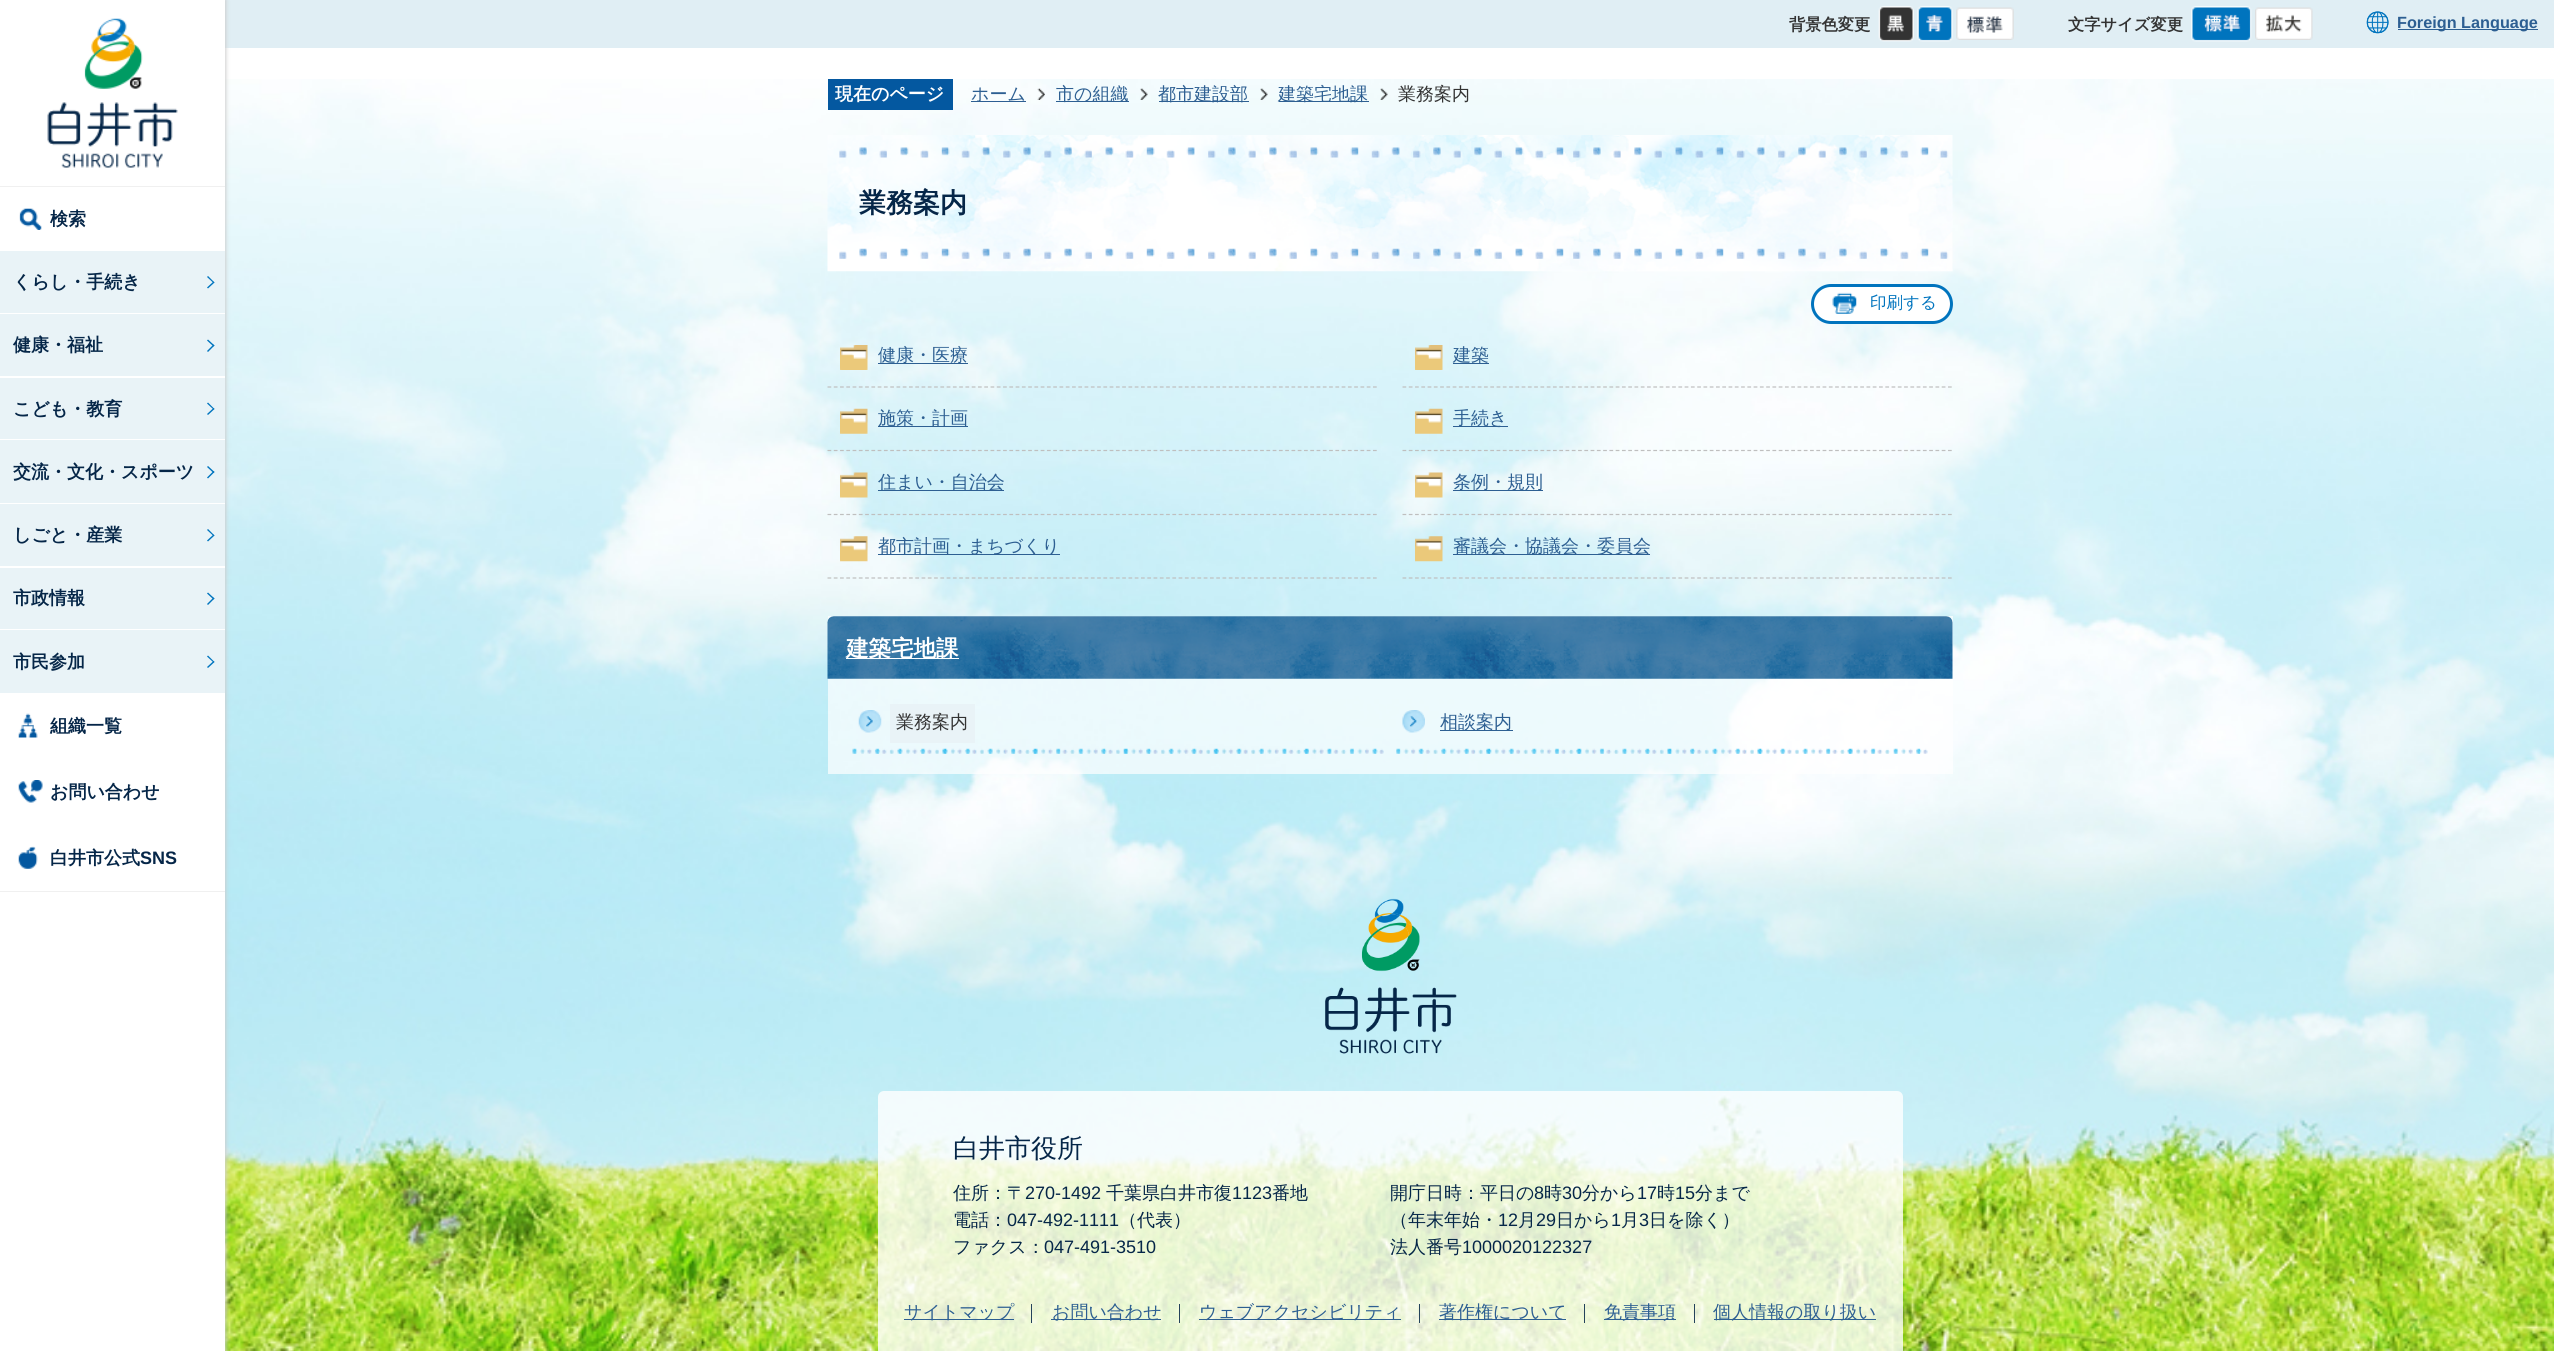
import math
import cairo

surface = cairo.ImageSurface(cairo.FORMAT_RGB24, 2554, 1351)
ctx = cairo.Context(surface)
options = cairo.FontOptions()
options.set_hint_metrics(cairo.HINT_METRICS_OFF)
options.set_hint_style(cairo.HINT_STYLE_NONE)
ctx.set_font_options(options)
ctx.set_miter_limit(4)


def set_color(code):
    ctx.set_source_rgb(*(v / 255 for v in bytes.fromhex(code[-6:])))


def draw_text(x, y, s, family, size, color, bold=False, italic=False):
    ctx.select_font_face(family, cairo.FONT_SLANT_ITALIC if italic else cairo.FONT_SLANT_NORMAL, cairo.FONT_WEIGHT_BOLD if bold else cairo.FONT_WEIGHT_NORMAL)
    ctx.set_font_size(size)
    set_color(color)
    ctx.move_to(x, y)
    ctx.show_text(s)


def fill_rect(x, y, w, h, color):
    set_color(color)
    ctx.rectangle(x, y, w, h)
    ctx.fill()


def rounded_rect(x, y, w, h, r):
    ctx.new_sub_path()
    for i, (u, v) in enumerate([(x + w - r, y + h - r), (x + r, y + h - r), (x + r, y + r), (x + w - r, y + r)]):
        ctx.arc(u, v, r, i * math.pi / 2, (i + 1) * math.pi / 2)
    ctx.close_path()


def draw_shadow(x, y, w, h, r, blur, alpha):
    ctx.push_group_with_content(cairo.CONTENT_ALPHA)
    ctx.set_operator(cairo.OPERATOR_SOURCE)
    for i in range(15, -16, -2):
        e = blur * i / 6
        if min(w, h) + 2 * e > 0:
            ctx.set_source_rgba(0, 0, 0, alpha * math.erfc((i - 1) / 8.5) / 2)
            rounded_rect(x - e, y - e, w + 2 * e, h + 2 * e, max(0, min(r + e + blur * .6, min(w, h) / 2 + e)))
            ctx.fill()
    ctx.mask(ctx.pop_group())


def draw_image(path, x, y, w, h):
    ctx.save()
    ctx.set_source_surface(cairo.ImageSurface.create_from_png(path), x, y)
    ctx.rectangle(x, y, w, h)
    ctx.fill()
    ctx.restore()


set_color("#ffffff")
ctx.paint()
fill_rect(225, 0, 2329, 48, "#e0eef4")
draw_text(1789, 30, "背景色変更", "WenQuanYi Zen Hei", 16.25, "#333333", bold=True)
draw_image("assets/img1.png", 1878, 6, 36, 36)
draw_image("assets/img2.png", 1917, 6, 36, 36)
draw_image("assets/img3.png", 1956, 7, 58, 33)
draw_text(2068, 30, "文字サイズ変更", "WenQuanYi Zen Hei", 16.25, "#333333", bold=True)
draw_image("assets/img4.png", 2191, 6, 61, 36)
draw_image("assets/img5.png", 2255, 7, 58, 33)
draw_image("assets/img6.png", 2366, 11, 23, 23)
fill_rect(2398, 29, 140, 1, "#2d5f92")
draw_text(2397, 28, "Foreign Language", "Liberation Sans", 16.25, "#2d5f92", bold=True)
draw_image("assets/img12.png", 225, 79, 2329, 1272)
set_color("#cccccc")
draw_shadow(1, 0, 225, 1351, 0, 2, 1)
fill_rect(0, 0, 225, 1351, "#ffffff")
fill_rect(0, 186, 225, 1, "#f0f0f0")
draw_image("assets/img7.png", 47, 18, 131, 150)
draw_image("assets/img8.png", 19, 208, 23, 22)
draw_text(50, 225, "検索", "WenQuanYi Zen Hei", 18, "#052648", bold=True)
fill_rect(0, 251, 225, 62, "#e9f3f7")
draw_text(13, 288, "くらし・手続き", "WenQuanYi Zen Hei", 18, "#052648", bold=True)
set_color("#0074be")
ctx.new_path()
ctx.move_to(208, 276)
ctx.line_to(214.5, 282.5)
ctx.line_to(213.5, 283)
ctx.line_to(207, 277)
ctx.close_path()
ctx.fill()
ctx.new_path()
ctx.move_to(213.5, 281.5)
ctx.line_to(214.5, 282.5)
ctx.line_to(208, 288.5)
ctx.line_to(207, 287.5)
ctx.close_path()
ctx.fill()
fill_rect(0, 314, 225, 62, "#e9f3f7")
draw_text(13, 351, "健康・福祉", "WenQuanYi Zen Hei", 18, "#052648", bold=True)
set_color("#0074be")
ctx.new_path()
ctx.move_to(208, 339.5)
ctx.line_to(214.5, 345.5)
ctx.line_to(213.5, 346.5)
ctx.line_to(207, 340.5)
ctx.close_path()
ctx.fill()
ctx.new_path()
ctx.move_to(213.5, 344.5)
ctx.line_to(214.5, 345.5)
ctx.line_to(208, 352)
ctx.line_to(207, 351)
ctx.close_path()
ctx.fill()
fill_rect(0, 378, 225, 61, "#e9f3f7")
draw_text(13, 415, "こども・教育", "WenQuanYi Zen Hei", 18, "#052648", bold=True)
set_color("#0074be")
ctx.new_path()
ctx.move_to(208, 402.5)
ctx.line_to(214.5, 409)
ctx.line_to(213.5, 409.5)
ctx.line_to(207, 403.5)
ctx.close_path()
ctx.fill()
ctx.new_path()
ctx.move_to(213.5, 408)
ctx.line_to(214.5, 409)
ctx.line_to(208, 415)
ctx.line_to(207, 414)
ctx.close_path()
ctx.fill()
fill_rect(0, 440, 225, 63, "#e9f3f7")
draw_text(13, 478, "交流・文化・スポーツ", "WenQuanYi Zen Hei", 18, "#052648", bold=True)
set_color("#0074be")
ctx.new_path()
ctx.move_to(208, 466)
ctx.line_to(214.5, 472)
ctx.line_to(213.5, 473)
ctx.line_to(207, 467)
ctx.close_path()
ctx.fill()
ctx.new_path()
ctx.move_to(213.5, 471)
ctx.line_to(214.5, 472)
ctx.line_to(208, 478.5)
ctx.line_to(207, 477.5)
ctx.close_path()
ctx.fill()
fill_rect(0, 504, 225, 62, "#e9f3f7")
draw_text(13, 541, "しごと・産業", "WenQuanYi Zen Hei", 18, "#052648", bold=True)
set_color("#0074be")
ctx.new_path()
ctx.move_to(208, 529)
ctx.line_to(214.5, 535.5)
ctx.line_to(213.5, 536)
ctx.line_to(207, 530)
ctx.close_path()
ctx.fill()
ctx.new_path()
ctx.move_to(213.5, 534.5)
ctx.line_to(214.5, 535.5)
ctx.line_to(208, 541.5)
ctx.line_to(207, 540.5)
ctx.close_path()
ctx.fill()
fill_rect(0, 568, 225, 61, "#e9f3f7")
draw_text(13, 604, "市政情報", "WenQuanYi Zen Hei", 18, "#052648", bold=True)
set_color("#0074be")
ctx.new_path()
ctx.move_to(208, 592.5)
ctx.line_to(214.5, 598.5)
ctx.line_to(213.5, 599.5)
ctx.line_to(207, 593.5)
ctx.close_path()
ctx.fill()
ctx.new_path()
ctx.move_to(213.5, 597.5)
ctx.line_to(214.5, 598.5)
ctx.line_to(208, 605)
ctx.line_to(207, 604)
ctx.close_path()
ctx.fill()
fill_rect(0, 630, 225, 63, "#e9f3f7")
draw_text(13, 668, "市民参加", "WenQuanYi Zen Hei", 18, "#052648", bold=True)
set_color("#0074be")
ctx.new_path()
ctx.move_to(208, 655.5)
ctx.line_to(214.5, 662)
ctx.line_to(213.5, 662.5)
ctx.line_to(207, 656.5)
ctx.close_path()
ctx.fill()
ctx.new_path()
ctx.move_to(213.5, 661)
ctx.line_to(214.5, 662)
ctx.line_to(208, 668)
ctx.line_to(207, 667)
ctx.close_path()
ctx.fill()
fill_rect(0, 891, 225, 1, "#f0f0f0")
draw_image("assets/img9.png", 18, 713, 20, 25)
draw_text(50, 732, "組織一覧", "WenQuanYi Zen Hei", 18, "#052648", bold=True)
draw_image("assets/img10.png", 18, 780, 25, 23)
draw_text(50, 798, "お問い合わせ", "WenQuanYi Zen Hei", 18, "#052648", bold=True)
draw_image("assets/img11.png", 18, 846, 20, 23)
draw_text(50, 864, "白井市公式", "WenQuanYi Zen Hei", 18, "#052648", bold=True)
draw_text(140, 864, "SNS", "Liberation Sans", 18, "#052648", bold=True)
fill_rect(828, 79, 125, 31, "#0458a0")
draw_text(835, 100, "現在のページ", "WenQuanYi Zen Hei", 18, "#ffffff", bold=True)
fill_rect(971, 101, 55, 1, "#2d5f92")
draw_text(971, 100, "ホーム", "WenQuanYi Zen Hei Medium", 18, "#2d5f92")
draw_image("assets/img13.png", 1037, 88, 8, 12)
fill_rect(1056, 101, 73, 1, "#2d5f92")
draw_text(1056, 100, "市の組織", "WenQuanYi Zen Hei Medium", 18, "#2d5f92")
draw_image("assets/img14.png", 1140, 88, 8, 12)
fill_rect(1159, 101, 90, 1, "#2d5f92")
draw_text(1158, 100, "都市建設部", "WenQuanYi Zen Hei Medium", 18, "#2d5f92")
draw_image("assets/img15.png", 1260, 88, 8, 12)
fill_rect(1279, 101, 90, 1, "#2d5f92")
draw_text(1278, 100, "建築宅地課", "WenQuanYi Zen Hei Medium", 18, "#2d5f92")
draw_image("assets/img16.png", 1380, 88, 8, 12)
draw_text(1398, 100, "業務案内", "WenQuanYi Zen Hei Medium", 18, "#333333")
draw_image("assets/img17.png", 827, 135, 1126, 137)
draw_text(859, 212, "業務案内", "WenQuanYi Zen Hei", 27, "#052648", bold=True)
set_color("#ffffff")
rounded_rect(1811, 284, 142, 40, 20)
ctx.fill()
draw_image("assets/img18.png", 1832, 292, 25, 22)
rounded_rect(1812.5, 285.5, 139, 37, 18.5)
set_color("#0074be")
ctx.set_line_width(3)
ctx.stroke()
draw_text(1870, 308, "印刷する", "WenQuanYi Zen Hei Medium", 16.5, "#0074be")
draw_image("assets/img19.png", 840, 345, 28, 25)
ctx.new_path()
ctx.move_to(827.5, 387)
ctx.line_to(1377.5, 387)
set_color("#bfbfbf")
ctx.set_line_width(1.2)
ctx.set_dash([3.75, 2.52])
ctx.stroke()
fill_rect(878, 363, 90, 1, "#2d5f92")
draw_text(878, 361, "健康・医療", "WenQuanYi Zen Hei Medium", 18, "#2d5f92")
draw_image("assets/img20.png", 1415, 345, 28, 25)
ctx.new_path()
ctx.move_to(1402.5, 387)
ctx.line_to(1952.5, 387)
set_color("#bfbfbf")
ctx.stroke()
fill_rect(1453, 363, 36, 1, "#2d5f92")
draw_text(1453, 361, "建築", "WenQuanYi Zen Hei Medium", 18, "#2d5f92")
draw_image("assets/img21.png", 840, 408, 28, 26)
ctx.new_path()
ctx.move_to(827.5, 450.5)
ctx.line_to(1377.5, 450.5)
set_color("#bfbfbf")
ctx.stroke()
fill_rect(878, 426, 90, 1, "#2d5f92")
draw_text(878, 424, "施策・計画", "WenQuanYi Zen Hei Medium", 18, "#2d5f92")
draw_image("assets/img22.png", 1415, 408, 28, 26)
ctx.new_path()
ctx.move_to(1402.5, 450.5)
ctx.line_to(1952.5, 450.5)
set_color("#bfbfbf")
ctx.stroke()
fill_rect(1453, 426, 55, 1, "#2d5f92")
draw_text(1453, 424, "手続き", "WenQuanYi Zen Hei Medium", 18, "#2d5f92")
draw_image("assets/img23.png", 840, 472, 28, 26)
ctx.new_path()
ctx.move_to(827.5, 514.5)
ctx.line_to(1377.5, 514.5)
set_color("#bfbfbf")
ctx.stroke()
fill_rect(878, 490, 126, 1, "#2d5f92")
draw_text(878, 488, "住まい・自治会", "WenQuanYi Zen Hei Medium", 18, "#2d5f92")
draw_image("assets/img24.png", 1415, 472, 28, 26)
ctx.new_path()
ctx.move_to(1402.5, 514.5)
ctx.line_to(1952.5, 514.5)
set_color("#bfbfbf")
ctx.stroke()
fill_rect(1453, 490, 90, 1, "#2d5f92")
draw_text(1453, 488, "条例・規則", "WenQuanYi Zen Hei Medium", 18, "#2d5f92")
draw_image("assets/img25.png", 840, 536, 28, 26)
ctx.new_path()
ctx.move_to(827.5, 578)
ctx.line_to(1377.5, 578)
set_color("#bfbfbf")
ctx.stroke()
fill_rect(878, 554, 182, 1, "#2d5f92")
draw_text(878, 552, "都市計画・まちづくり", "WenQuanYi Zen Hei Medium", 18, "#2d5f92")
draw_image("assets/img26.png", 1415, 536, 28, 26)
ctx.new_path()
ctx.move_to(1402.5, 578)
ctx.line_to(1952.5, 578)
set_color("#bfbfbf")
ctx.stroke()
fill_rect(1453, 554, 197, 1, "#2d5f92")
draw_text(1453, 552, "審議会・協議会・委員会", "WenQuanYi Zen Hei Medium", 18, "#2d5f92")
ctx.set_source_rgba(1, 1, 1, 0.7)
ctx.rectangle(828, 616, 1125, 158)
ctx.fill()
draw_image("assets/img27.png", 827, 616, 1126, 63)
fill_rect(846, 658, 113, 1, "#ffffff")
draw_text(846, 656, "建築宅地課", "WenQuanYi Zen Hei", 22.5, "#ffffff", bold=True)
draw_image("assets/img28.png", 852, 710, 532, 44)
fill_rect(890, 704, 85, 39, "#e9f3f7")
draw_text(896, 728, "業務案内", "WenQuanYi Zen Hei Medium", 18, "#333333")
draw_image("assets/img29.png", 1396, 710, 532, 44)
fill_rect(1440, 730, 73, 1, "#2d5f92")
draw_text(1440, 728, "相談案内", "WenQuanYi Zen Hei Medium", 18, "#2d5f92")
draw_image("assets/img30.png", 1325, 898, 132, 156)
ctx.set_source_rgba(1, 1, 1, 0.8)
rounded_rect(878, 1091, 1025, 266, 6)
ctx.fill()
draw_text(953, 1157, "白井市役所", "WenQuanYi Zen Hei Medium", 26, "#052648")
draw_text(953, 1199, "住所：〒", "WenQuanYi Zen Hei Medium", 18, "#052648")
draw_text(1025, 1199, "270-1492", "Liberation Sans", 18, "#052648")
draw_text(1106, 1199, "千葉県白井市復", "WenQuanYi Zen Hei Medium", 18, "#052648")
draw_text(1232, 1199, "1123", "Liberation Sans", 18, "#052648")
draw_text(1272, 1199, "番地", "WenQuanYi Zen Hei Medium", 18, "#052648")
draw_text(953, 1226, "電話：", "WenQuanYi Zen Hei Medium", 18, "#052648")
draw_text(1007, 1226, "047-492-1111", "Liberation Sans", 18, "#052648")
draw_text(1119, 1226, "（代表）", "WenQuanYi Zen Hei Medium", 18, "#052648")
draw_text(953, 1253, "ファクス：", "WenQuanYi Zen Hei Medium", 18, "#052648")
draw_text(1044, 1253, "047-491-3510", "Liberation Sans", 18, "#052648")
draw_text(1390, 1199, "開庁日時：平日の", "WenQuanYi Zen Hei Medium", 18, "#052648")
draw_text(1534, 1199, "8", "Liberation Sans", 18, "#052648")
draw_text(1544, 1199, "時", "WenQuanYi Zen Hei Medium", 18, "#052648")
draw_text(1562, 1199, "30", "Liberation Sans", 18, "#052648")
draw_text(1582, 1199, "分から", "WenQuanYi Zen Hei Medium", 18, "#052648")
draw_text(1637, 1199, "17", "Liberation Sans", 18, "#052648")
draw_text(1657, 1199, "時", "WenQuanYi Zen Hei Medium", 18, "#052648")
draw_text(1675, 1199, "15", "Liberation Sans", 18, "#052648")
draw_text(1695, 1199, "分まで", "WenQuanYi Zen Hei Medium", 18, "#052648")
draw_text(1390, 1226, "（年末年始・", "WenQuanYi Zen Hei Medium", 18, "#052648")
draw_text(1498, 1226, "12", "Liberation Sans", 18, "#052648")
draw_text(1518, 1226, "月", "WenQuanYi Zen Hei Medium", 18, "#052648")
draw_text(1536, 1226, "29", "Liberation Sans", 18, "#052648")
draw_text(1556, 1226, "日から", "WenQuanYi Zen Hei Medium", 18, "#052648")
draw_text(1611, 1226, "1", "Liberation Sans", 18, "#052648")
draw_text(1621, 1226, "月", "WenQuanYi Zen Hei Medium", 18, "#052648")
draw_text(1639, 1226, "3", "Liberation Sans", 18, "#052648")
draw_text(1649, 1226, "日を除く）", "WenQuanYi Zen Hei Medium", 18, "#052648")
draw_text(1390, 1253, "法人番号", "WenQuanYi Zen Hei Medium", 18, "#052648")
draw_text(1462, 1253, "1000020122327", "Liberation Sans", 18, "#052648")
fill_rect(904, 1319, 110, 1, "#2d5f92")
draw_text(904, 1318, "サイトマップ", "WenQuanYi Zen Hei Medium", 18, "#2d5f92")
fill_rect(1031, 1304, 1, 19, "#24425b")
fill_rect(1051, 1319, 110, 1, "#2d5f92")
draw_text(1052, 1318, "お問い合わせ", "WenQuanYi Zen Hei Medium", 18, "#2d5f92")
fill_rect(1179, 1304, 1, 19, "#24425b")
fill_rect(1199, 1319, 202, 1, "#2d5f92")
draw_text(1199, 1318, "ウェブアクセシビリティ", "WenQuanYi Zen Hei Medium", 18, "#2d5f92")
fill_rect(1419, 1304, 1, 19, "#24425b")
fill_rect(1439, 1319, 127, 1, "#2d5f92")
draw_text(1439, 1318, "著作権について", "WenQuanYi Zen Hei Medium", 18, "#2d5f92")
fill_rect(1584, 1304, 1, 19, "#24425b")
fill_rect(1604, 1319, 72, 1, "#2d5f92")
draw_text(1604, 1318, "免責事項", "WenQuanYi Zen Hei Medium", 18, "#2d5f92")
fill_rect(1694, 1304, 1, 19, "#24425b")
fill_rect(1714, 1319, 162, 1, "#2d5f92")
draw_text(1713, 1318, "個人情報の取り扱い", "WenQuanYi Zen Hei Medium", 18, "#2d5f92")
surface.write_to_png("output.png")
